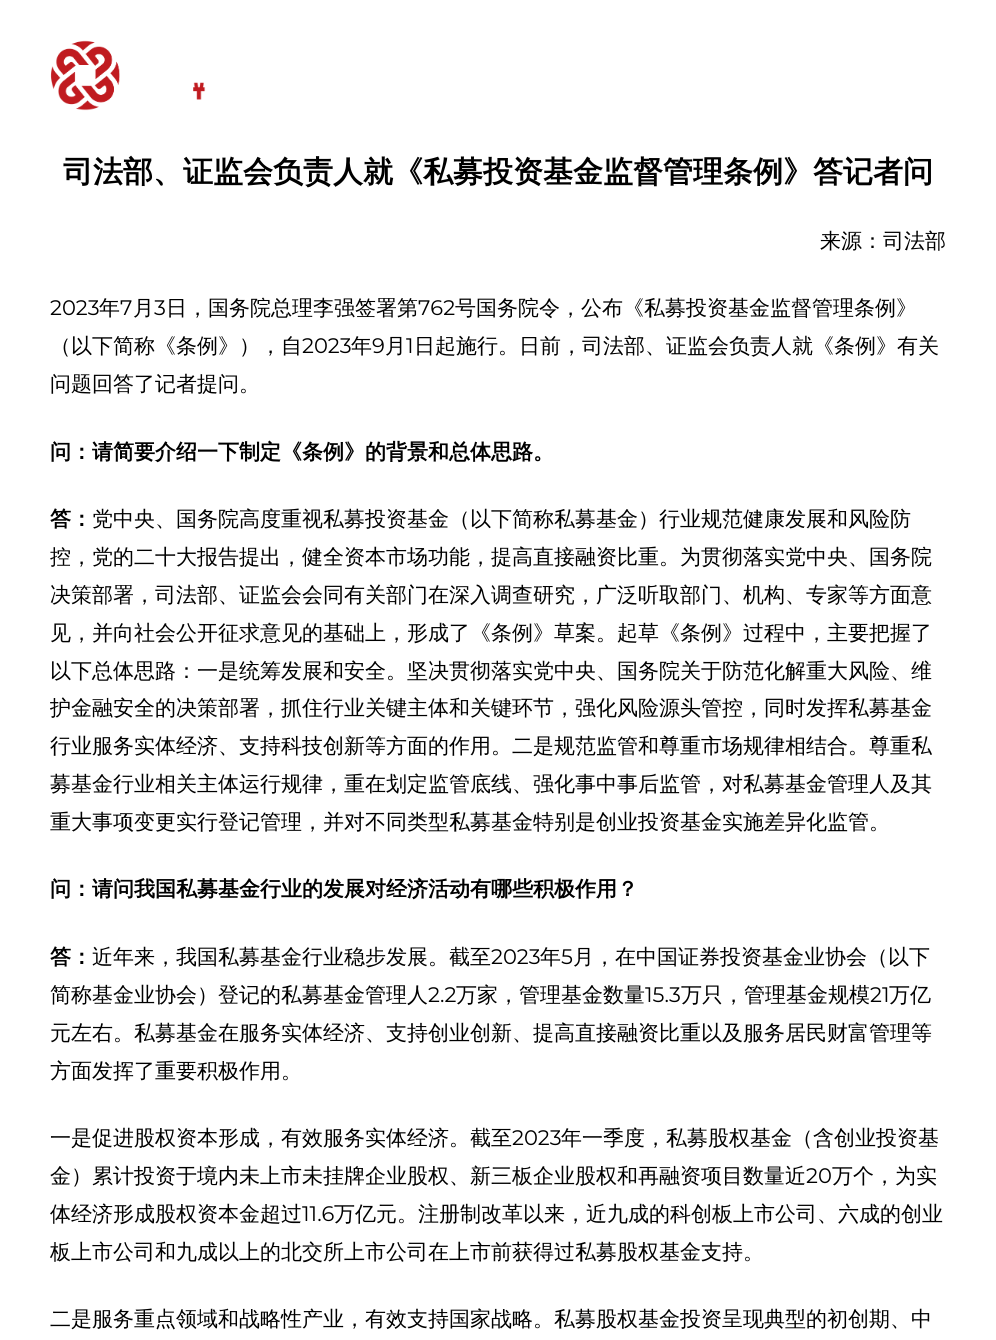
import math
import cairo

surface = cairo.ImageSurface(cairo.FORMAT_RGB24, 996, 1340)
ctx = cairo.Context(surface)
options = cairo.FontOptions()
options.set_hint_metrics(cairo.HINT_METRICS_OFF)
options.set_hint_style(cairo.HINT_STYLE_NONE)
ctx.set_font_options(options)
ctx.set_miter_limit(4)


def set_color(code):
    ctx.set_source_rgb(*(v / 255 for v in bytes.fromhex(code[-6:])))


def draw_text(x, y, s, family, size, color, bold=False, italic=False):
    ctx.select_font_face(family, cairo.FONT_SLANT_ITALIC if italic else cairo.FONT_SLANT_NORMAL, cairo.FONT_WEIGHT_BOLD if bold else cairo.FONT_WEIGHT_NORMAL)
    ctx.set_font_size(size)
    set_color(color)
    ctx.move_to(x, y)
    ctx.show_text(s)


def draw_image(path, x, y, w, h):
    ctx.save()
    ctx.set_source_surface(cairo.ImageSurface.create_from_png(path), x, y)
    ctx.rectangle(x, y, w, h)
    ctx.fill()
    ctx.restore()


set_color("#ffffff")
ctx.paint()
draw_image("assets/img1.png", 50, 40, 156, 71)
draw_text(63, 182, "司法部、证监会负责人就《私募投资基金监督管理条例》答记者问", "WenQuanYi Zen Hei", 30, "#000000", bold=True)
draw_text(820, 248, "来源：司法部", "WenQuanYi Zen Hei Medium", 21, "#000000")
draw_text(50, 315, "2023", "Montserrat", 21, "#000000")
draw_text(99, 315, "年", "WenQuanYi Zen Hei Medium", 21, "#000000")
draw_text(120, 315, "7", "Montserrat", 21, "#000000")
draw_text(133, 315, "月", "WenQuanYi Zen Hei Medium", 21, "#000000")
draw_text(154, 315, "3", "Montserrat", 21, "#000000")
draw_text(166, 315, "日，国务院总理李强签署第", "WenQuanYi Zen Hei Medium", 21, "#000000")
draw_text(418, 315, "762", "Montserrat", 21, "#000000")
draw_text(455, 315, "号国务院令，公布《私募投资基金监督管理条例》", "WenQuanYi Zen Hei Medium", 21, "#000000")
draw_text(50, 353, "（以下简称《条例》），自", "WenQuanYi Zen Hei Medium", 21, "#000000")
draw_text(302, 353, "2023", "Montserrat", 21, "#000000")
draw_text(351, 353, "年", "WenQuanYi Zen Hei Medium", 21, "#000000")
draw_text(372, 353, "9", "Montserrat", 21, "#000000")
draw_text(385, 353, "月", "WenQuanYi Zen Hei Medium", 21, "#000000")
draw_text(406, 353, "1", "Montserrat", 21, "#000000")
draw_text(414, 353, "日起施行。日前，司法部、证监会负责人就《条例》有关", "WenQuanYi Zen Hei Medium", 21, "#000000")
draw_text(50, 391, "问题回答了记者提问。", "WenQuanYi Zen Hei Medium", 21, "#000000")
draw_text(50, 459, "问：请简要介绍一下制定《条例》的背景和总体思路。", "WenQuanYi Zen Hei", 21, "#000000", bold=True)
draw_text(50, 526, "答：", "WenQuanYi Zen Hei", 21, "#000000", bold=True)
draw_text(92, 526, "党中央、国务院高度重视私募投资基金（以下简称私募基金）行业规范健康发展和风险防", "WenQuanYi Zen Hei Medium", 21, "#000000")
draw_text(50, 564, "控，党的二十大报告提出，健全资本市场功能，提高直接融资比重。为贯彻落实党中央、国务院", "WenQuanYi Zen Hei Medium", 21, "#000000")
draw_text(50, 602, "决策部署，司法部、证监会会同有关部门在深入调查研究，广泛听取部门、机构、专家等方面意", "WenQuanYi Zen Hei Medium", 21, "#000000")
draw_text(50, 640, "见，并向社会公开征求意见的基础上，形成了《条例》草案。起草《条例》过程中，主要把握了", "WenQuanYi Zen Hei Medium", 21, "#000000")
draw_text(50, 678, "以下总体思路：一是统筹发展和安全。坚决贯彻落实党中央、国务院关于防范化解重大风险、维", "WenQuanYi Zen Hei Medium", 21, "#000000")
draw_text(50, 715, "护金融安全的决策部署，抓住行业关键主体和关键环节，强化风险源头管控，同时发挥私募基金", "WenQuanYi Zen Hei Medium", 21, "#000000")
draw_text(50, 753, "行业服务实体经济、支持科技创新等方面的作用。二是规范监管和尊重市场规律相结合。尊重私", "WenQuanYi Zen Hei Medium", 21, "#000000")
draw_text(50, 791, "募基金行业相关主体运行规律，重在划定监管底线、强化事中事后监管，对私募基金管理人及其", "WenQuanYi Zen Hei Medium", 21, "#000000")
draw_text(50, 829, "重大事项变更实行登记管理，并对不同类型私募基金特别是创业投资基金实施差异化监管。", "WenQuanYi Zen Hei Medium", 21, "#000000")
draw_text(50, 896, "问：请问我国私募基金行业的发展对经济活动有哪些积极作用？", "WenQuanYi Zen Hei", 21, "#000000", bold=True)
draw_text(50, 964, "答：", "WenQuanYi Zen Hei", 21, "#000000", bold=True)
draw_text(92, 964, "近年来，我国私募基金行业稳步发展。截至", "WenQuanYi Zen Hei Medium", 21, "#000000")
draw_text(491, 964, "2023", "Montserrat", 21, "#000000")
draw_text(540, 964, "年", "WenQuanYi Zen Hei Medium", 21, "#000000")
draw_text(561, 964, "5", "Montserrat", 21, "#000000")
draw_text(573, 964, "月，在中国证券投资基金业协会（以下", "WenQuanYi Zen Hei Medium", 21, "#000000")
draw_text(50, 1002, "简称基金业协会）登记的私募基金管理人", "WenQuanYi Zen Hei Medium", 21, "#000000")
draw_text(428, 1002, "2.2", "Montserrat", 21, "#000000")
draw_text(456, 1002, "万家，管理基金数量", "WenQuanYi Zen Hei Medium", 21, "#000000")
draw_text(645, 1002, "15.3", "Montserrat", 21, "#000000")
draw_text(681, 1002, "万只，管理基金规模", "WenQuanYi Zen Hei Medium", 21, "#000000")
draw_text(870, 1002, "21", "Montserrat", 21, "#000000")
draw_text(889, 1002, "万亿", "WenQuanYi Zen Hei Medium", 21, "#000000")
draw_text(50, 1040, "元左右。私募基金在服务实体经济、支持创业创新、提高直接融资比重以及服务居民财富管理等", "WenQuanYi Zen Hei Medium", 21, "#000000")
draw_text(50, 1078, "方面发挥了重要积极作用。", "WenQuanYi Zen Hei Medium", 21, "#000000")
draw_text(50, 1145, "一是促进股权资本形成，有效服务实体经济。截至", "WenQuanYi Zen Hei Medium", 21, "#000000")
draw_text(512, 1145, "2023", "Montserrat", 21, "#000000")
draw_text(561, 1145, "年一季度，私募股权基金（含创业投资基", "WenQuanYi Zen Hei Medium", 21, "#000000")
draw_text(50, 1183, "金）累计投资于境内未上市未挂牌企业股权、新三板企业股权和再融资项目数量近", "WenQuanYi Zen Hei Medium", 21, "#000000")
draw_text(806, 1183, "20", "Montserrat", 21, "#000000")
draw_text(832, 1183, "万个，为实", "WenQuanYi Zen Hei Medium", 21, "#000000")
draw_text(50, 1221, "体经济形成股权资本金超过", "WenQuanYi Zen Hei Medium", 21, "#000000")
draw_text(302, 1221, "11.6", "Montserrat", 21, "#000000")
draw_text(334, 1221, "万亿元。注册制改革以来，近九成的科创板上市公司、六成的创业", "WenQuanYi Zen Hei Medium", 21, "#000000")
draw_text(50, 1259, "板上市公司和九成以上的北交所上市公司在上市前获得过私募股权基金支持。", "WenQuanYi Zen Hei Medium", 21, "#000000")
draw_text(50, 1326, "二是服务重点领域和战略性产业，有效支持国家战略。私募股权基金投资呈现典型的初创期、中", "WenQuanYi Zen Hei Medium", 21, "#000000")
surface.write_to_png("output.png")
